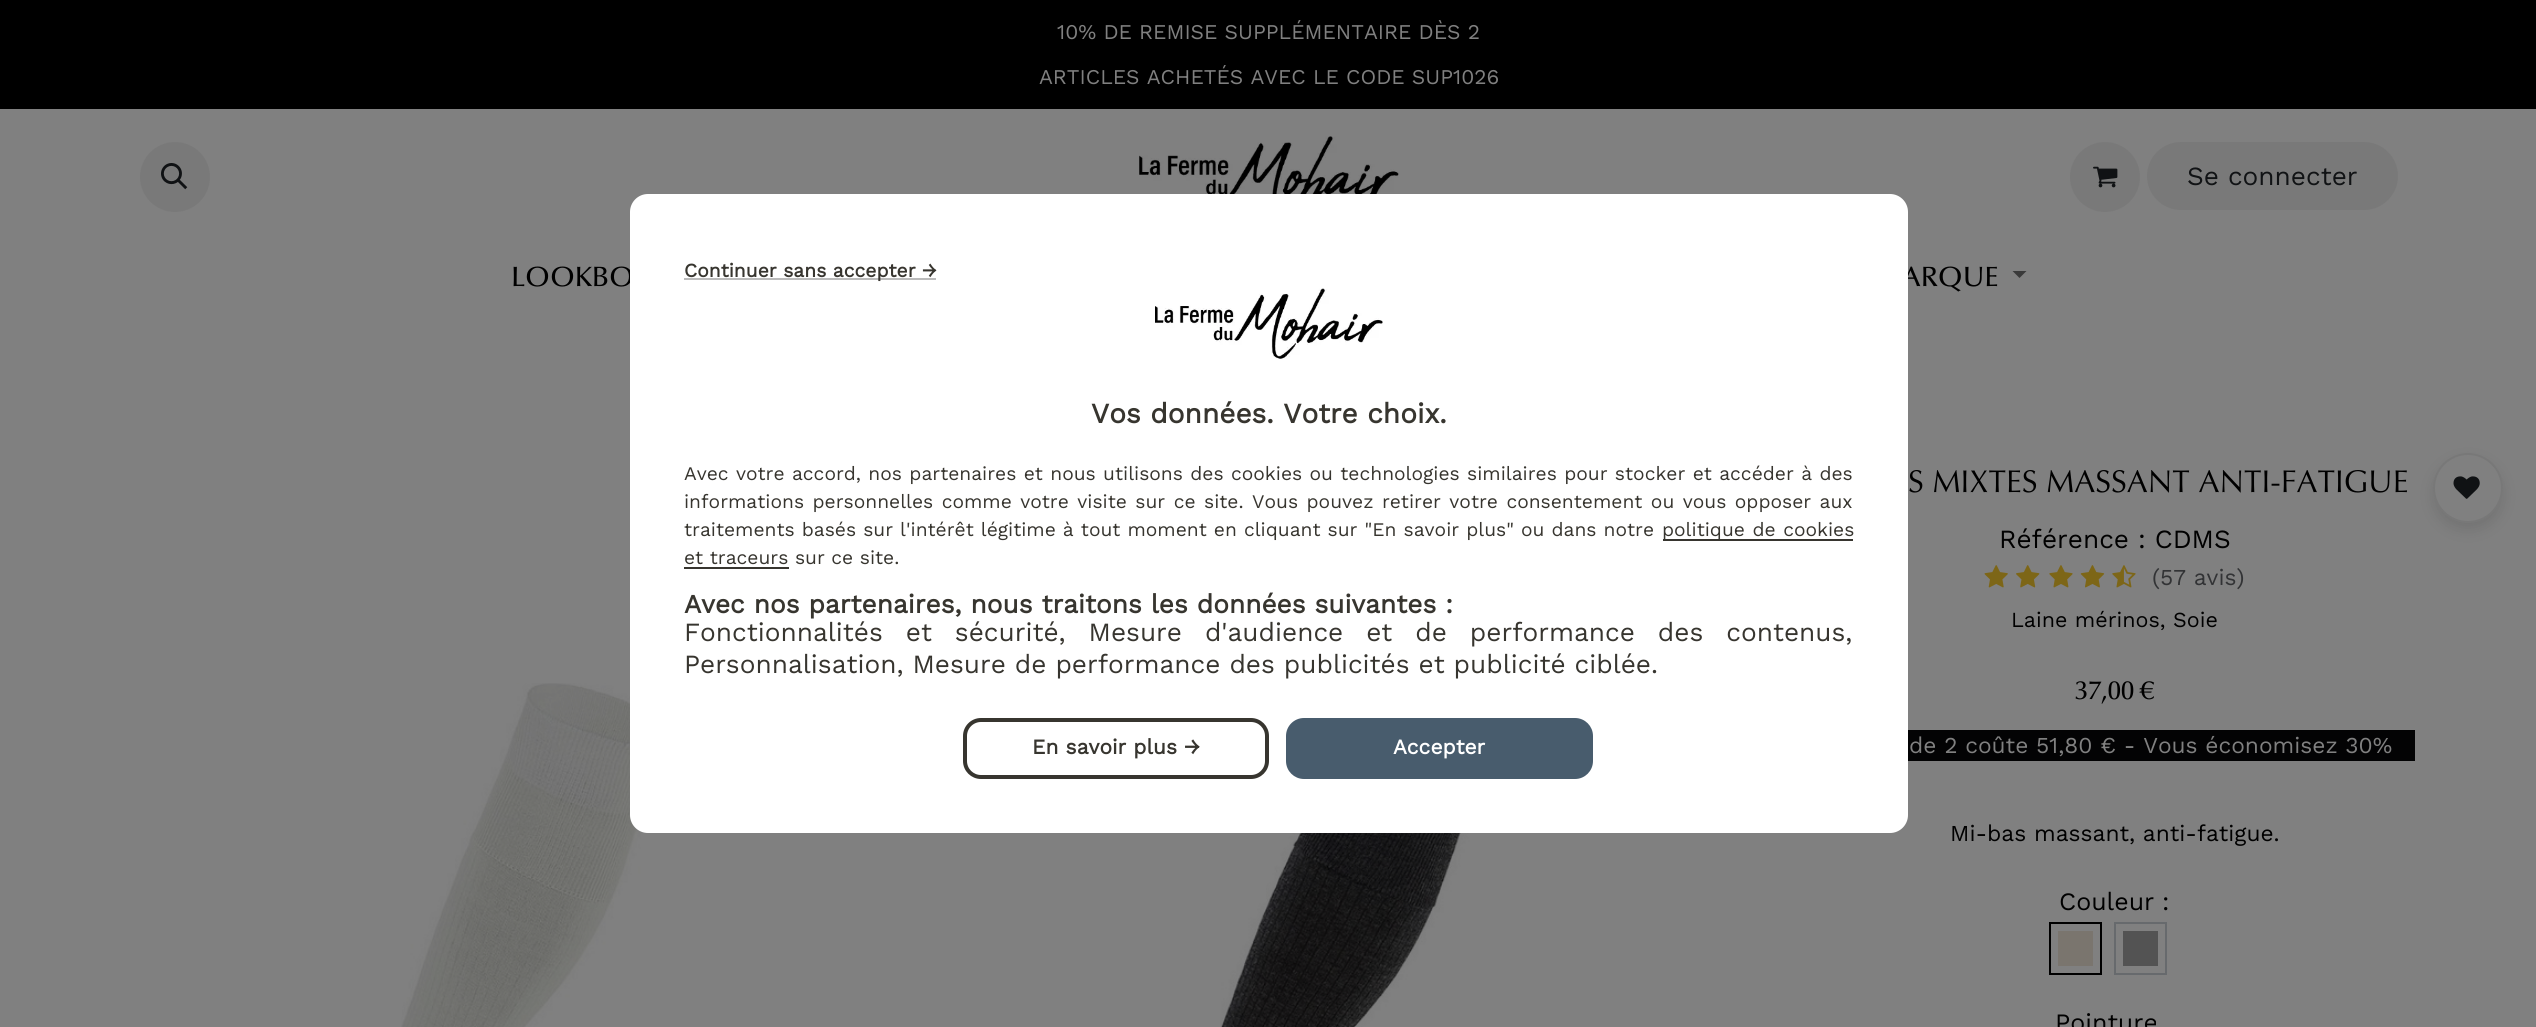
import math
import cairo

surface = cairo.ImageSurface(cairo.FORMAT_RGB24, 2536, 1027)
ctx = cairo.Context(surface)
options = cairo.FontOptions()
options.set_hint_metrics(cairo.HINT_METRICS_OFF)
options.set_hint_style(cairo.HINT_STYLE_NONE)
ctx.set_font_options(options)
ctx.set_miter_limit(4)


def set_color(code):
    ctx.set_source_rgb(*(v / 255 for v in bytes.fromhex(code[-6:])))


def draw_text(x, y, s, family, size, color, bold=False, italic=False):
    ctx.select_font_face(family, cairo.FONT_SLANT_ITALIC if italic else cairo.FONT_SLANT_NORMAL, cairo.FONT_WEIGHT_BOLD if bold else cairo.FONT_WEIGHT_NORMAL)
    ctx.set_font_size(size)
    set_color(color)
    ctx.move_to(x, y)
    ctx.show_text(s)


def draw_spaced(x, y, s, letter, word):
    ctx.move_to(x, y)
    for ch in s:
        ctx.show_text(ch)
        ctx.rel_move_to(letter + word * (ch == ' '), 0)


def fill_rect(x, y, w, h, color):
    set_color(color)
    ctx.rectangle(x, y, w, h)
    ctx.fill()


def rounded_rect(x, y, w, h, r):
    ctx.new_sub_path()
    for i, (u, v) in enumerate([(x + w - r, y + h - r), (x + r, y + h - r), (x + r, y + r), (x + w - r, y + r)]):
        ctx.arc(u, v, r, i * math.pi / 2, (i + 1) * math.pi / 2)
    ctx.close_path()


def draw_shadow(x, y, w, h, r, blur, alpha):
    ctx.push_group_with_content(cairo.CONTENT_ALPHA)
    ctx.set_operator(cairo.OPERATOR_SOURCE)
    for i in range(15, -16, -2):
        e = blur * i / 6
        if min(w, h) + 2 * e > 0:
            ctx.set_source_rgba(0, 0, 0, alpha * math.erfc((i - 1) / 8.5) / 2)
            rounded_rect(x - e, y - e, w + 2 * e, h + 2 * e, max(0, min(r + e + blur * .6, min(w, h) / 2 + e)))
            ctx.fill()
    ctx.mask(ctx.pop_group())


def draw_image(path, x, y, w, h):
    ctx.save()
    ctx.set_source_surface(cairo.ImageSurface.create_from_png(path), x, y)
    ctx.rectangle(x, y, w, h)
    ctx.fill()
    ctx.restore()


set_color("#808080")
ctx.paint()
fill_rect(0, 0, 2536, 109, "#000000")
draw_text(1057, 39, "10% DE REMISE SUPPLÉMENTAIRE DÈS 2", "Work Sans", 21, "#808080")
draw_text(1039, 84, "ARTICLES ACHETÉS AVEC LE CODE SUP1026", "Work Sans", 21, "#808080")
set_color("#797979")
ctx.new_path()
ctx.arc(175, 177, 35, 0, 2 * math.pi)
ctx.fill()
draw_image("assets/img1.png", 161, 163, 27, 27)
draw_image("assets/img2.png", 1139, 136, 260, 58)
ctx.arc(2105, 177, 35, 0, 2 * math.pi)
ctx.fill()
draw_image("assets/img3.png", 2093, 166, 25, 22)
rounded_rect(2147, 142, 251, 68, 34)
ctx.fill()
draw_text(2187, 185, "Se connecter", "Work Sans", 26.25, "#111315")
draw_text(511, 286, "LOOKBO", "Optima Medium", 28, "#000000")
draw_text(1902, 286, "ARQUE", "Optima Medium", 28, "#000000")
set_color("#3a3a3a")
ctx.new_path()
ctx.move_to(2012.5, 271)
ctx.line_to(2026.5, 271)
ctx.line_to(2019.5, 278)
ctx.close_path()
ctx.fill()
draw_image("assets/img4.png", 401, 683, 273, 344)
draw_image("assets/img5.png", 1220, 833, 280, 194)
draw_text(1908, 492, "S MIXTES MASSANT ANTI-FATIGUE", "Optima", 31.5, "#000000")
draw_text(1999, 548, "Référence : CDMS", "Work Sans", 26.25, "#000000")
draw_image("assets/img6.png", 1984, 565, 24, 23)
draw_image("assets/img7.png", 2016, 565, 24, 23)
draw_image("assets/img8.png", 2049, 565, 24, 23)
draw_image("assets/img9.png", 2080, 565, 25, 23)
draw_image("assets/img10.png", 2112, 565, 24, 23)
draw_text(2152, 585, "(57 avis)", "Work Sans", 22.75, "#323335")
draw_text(2011, 627, "Laine mérinos,", "Work Sans", 21.5, "#000000")
draw_text(2173, 627, "Soie", "Work Sans", 21.5, "#000000")
set_color("#000000")
draw_shadow(2433, 460, 70, 70, 35, 7, 0.1)
set_color("#808080")
ctx.arc(2468, 488, 34, 0, 2 * math.pi)
ctx.fill_preserve()
set_color("#787878")
ctx.stroke()
draw_image("assets/img11.png", 2453, 476, 27, 23)
draw_text(2075, 699, "37,00 €", "Optima Medium", 26.25, "#000000")
fill_rect(1908, 730, 507, 31, "#030304")
draw_text(1909, 753, "de 2 coûte 51,80 € - Vous économisez 30%", "Work Sans", 22.75, "#808080")
draw_text(1950, 841, "Mi-bas massant, anti-fatigue.", "Work Sans", 22.75, "#000000")
draw_text(2059, 910, "Couleur", "Work Sans", 25, "#000000")
draw_text(2162, 910, ":", "Work Sans", 25, "#000000")
fill_rect(2058, 931, 35, 35, "#7a756e")
ctx.rectangle(2052.5, 925.5, 46, 46)
set_color("#000000")
ctx.set_line_width(7)
ctx.stroke()
ctx.rectangle(2054.5, 927.5, 42, 42)
set_color("#808080")
ctx.stroke()
fill_rect(2123, 931, 35, 35, "#535353")
ctx.rectangle(2117.5, 925.5, 46, 46)
set_color("#676a6d")
ctx.stroke()
ctx.rectangle(2119.5, 927.5, 42, 42)
set_color("#808080")
ctx.stroke()
draw_text(2055, 1031, "Pointure", "Work Sans", 25, "#000000")
set_color("#ffffff")
rounded_rect(631, 195, 1276, 637, 17)
ctx.fill_preserve()
ctx.set_line_width(2)
ctx.stroke()
fill_rect(684, 278, 252, 2, "#bbbbbb")
draw_text(684, 277, "Continuer sans accepter →", "Work Sans", 19.25, "#37352f", bold=True)
draw_image("assets/img12.png", 1155, 288, 228, 71)
draw_text(1091, 423, "Vos données. Votre choix.", "Work Sans", 28, "#37352f", bold=True)
ctx.select_font_face("Work Sans")
ctx.set_font_size(19.25)
draw_spaced(684, 480, "Avec votre accord, nos partenaires et nous utilisons des cookies ou technologies similaires pour stocker et accéder à des", 0, 0.8)
draw_spaced(684, 508, "informations personnelles comme votre visite sur ce site. Vous pouvez retirer votre consentement ou vous opposer aux", 0, 1.9)
draw_spaced(684, 536, "traitements basés sur l'intérêt légitime à tout moment en cliquant sur \"En savoir plus\" ou dans notre", 0, 0.5)
fill_rect(1663, 539, 190, 2, "#37352f")
draw_spaced(1662, 536, "politique de cookies", 0, 1)
draw_text(684, 564, "et traceurs sur ce site.", "Work Sans", 19.25, "#37352f")
fill_rect(684, 567, 105, 2, "#37352f")
draw_text(684, 613, "Avec nos partenaires, nous traitons les données suivantes :", "Work Sans", 26.25, "#37352f", bold=True)
ctx.select_font_face("Work Sans")
draw_spaced(684, 641, "Fonctionnalités et sécurité, Mesure d'audience et de performance des contenus,", 0, 14)
draw_text(684, 673, "Personnalisation, Mesure de performance des publicités et publicité ciblée.", "Work Sans", 26.25, "#37352f")
rounded_rect(965, 720, 302, 57, 16)
ctx.set_line_width(4)
ctx.stroke()
draw_text(1032, 754, "En savoir plus →", "Work Sans", 21, "#37352f", bold=True)
set_color("#485c6d")
rounded_rect(1288, 720, 303, 57, 16)
ctx.fill_preserve()
ctx.stroke()
draw_text(1393, 754, "Accepter", "Work Sans", 21, "#ffffff", bold=True)
surface.write_to_png("output.png")
